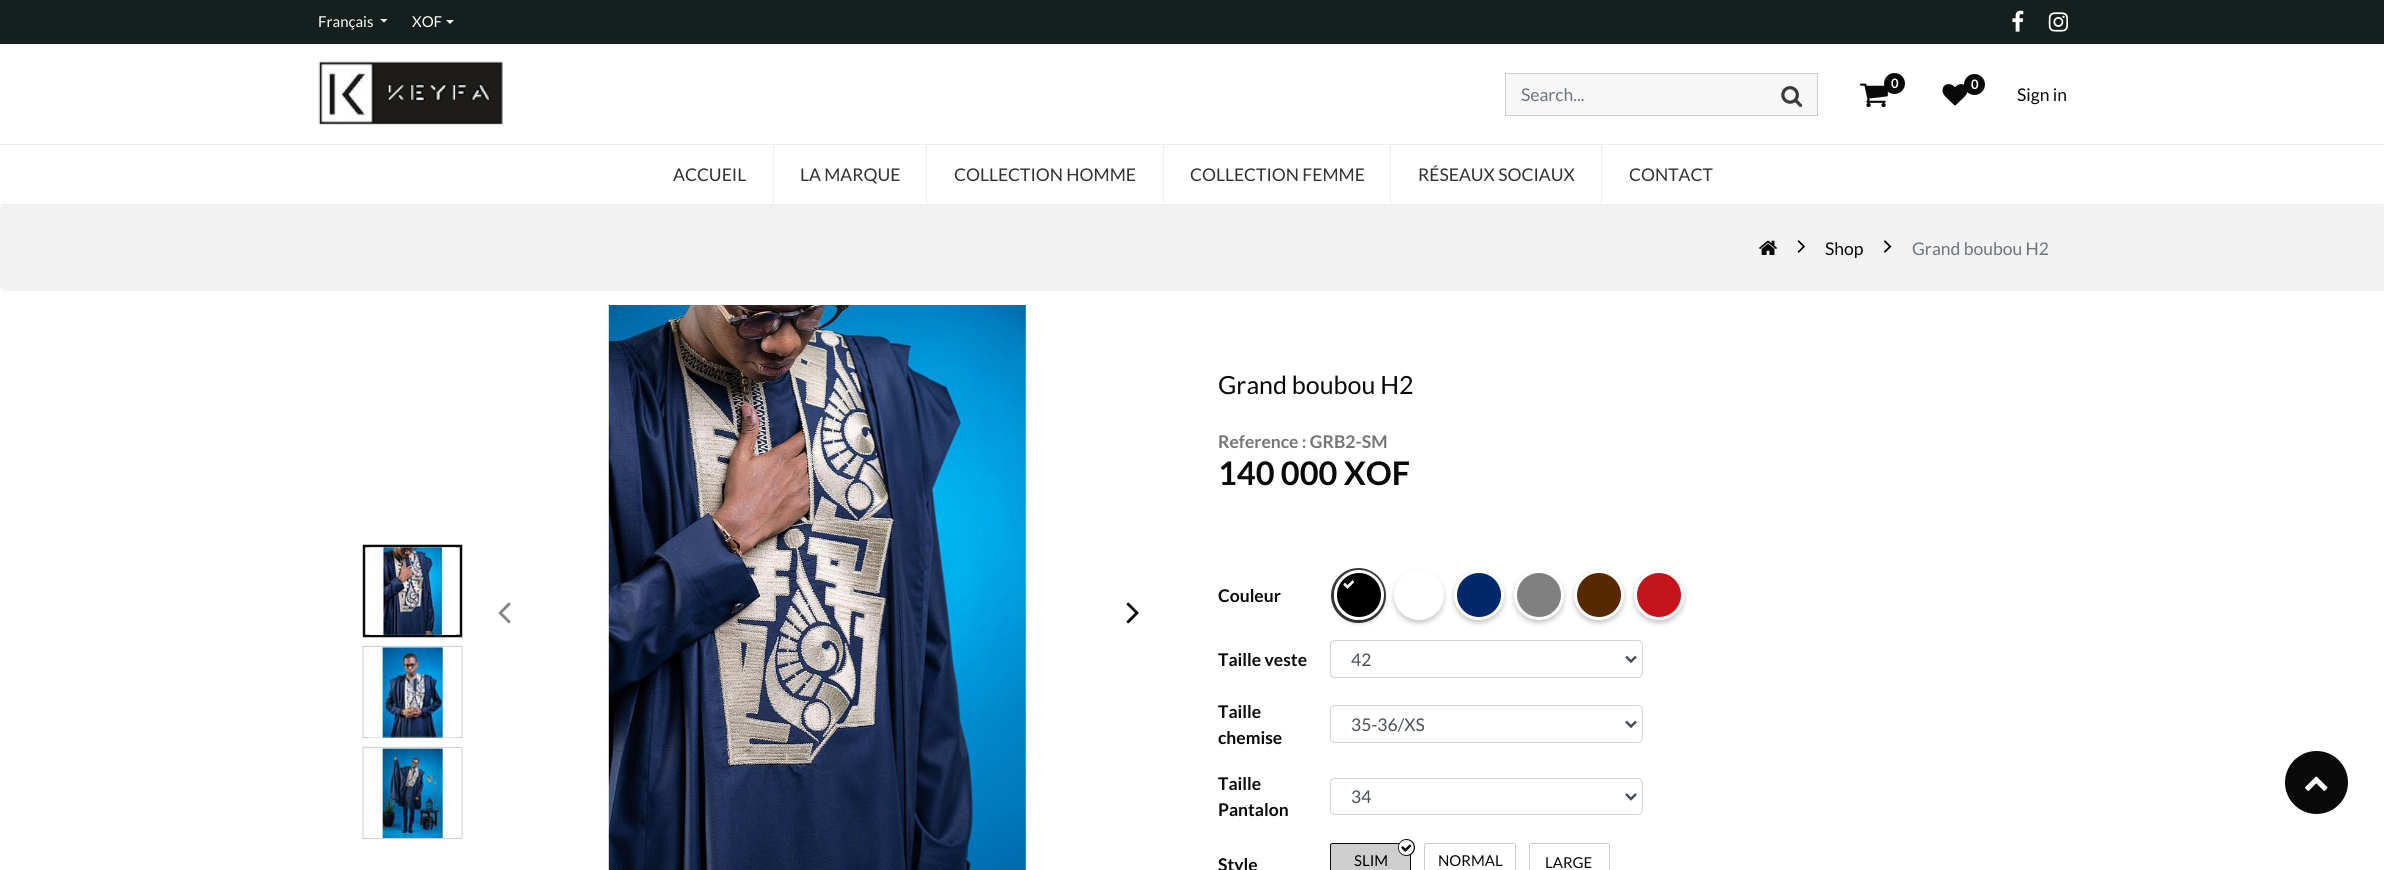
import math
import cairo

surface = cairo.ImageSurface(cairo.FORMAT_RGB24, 2384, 870)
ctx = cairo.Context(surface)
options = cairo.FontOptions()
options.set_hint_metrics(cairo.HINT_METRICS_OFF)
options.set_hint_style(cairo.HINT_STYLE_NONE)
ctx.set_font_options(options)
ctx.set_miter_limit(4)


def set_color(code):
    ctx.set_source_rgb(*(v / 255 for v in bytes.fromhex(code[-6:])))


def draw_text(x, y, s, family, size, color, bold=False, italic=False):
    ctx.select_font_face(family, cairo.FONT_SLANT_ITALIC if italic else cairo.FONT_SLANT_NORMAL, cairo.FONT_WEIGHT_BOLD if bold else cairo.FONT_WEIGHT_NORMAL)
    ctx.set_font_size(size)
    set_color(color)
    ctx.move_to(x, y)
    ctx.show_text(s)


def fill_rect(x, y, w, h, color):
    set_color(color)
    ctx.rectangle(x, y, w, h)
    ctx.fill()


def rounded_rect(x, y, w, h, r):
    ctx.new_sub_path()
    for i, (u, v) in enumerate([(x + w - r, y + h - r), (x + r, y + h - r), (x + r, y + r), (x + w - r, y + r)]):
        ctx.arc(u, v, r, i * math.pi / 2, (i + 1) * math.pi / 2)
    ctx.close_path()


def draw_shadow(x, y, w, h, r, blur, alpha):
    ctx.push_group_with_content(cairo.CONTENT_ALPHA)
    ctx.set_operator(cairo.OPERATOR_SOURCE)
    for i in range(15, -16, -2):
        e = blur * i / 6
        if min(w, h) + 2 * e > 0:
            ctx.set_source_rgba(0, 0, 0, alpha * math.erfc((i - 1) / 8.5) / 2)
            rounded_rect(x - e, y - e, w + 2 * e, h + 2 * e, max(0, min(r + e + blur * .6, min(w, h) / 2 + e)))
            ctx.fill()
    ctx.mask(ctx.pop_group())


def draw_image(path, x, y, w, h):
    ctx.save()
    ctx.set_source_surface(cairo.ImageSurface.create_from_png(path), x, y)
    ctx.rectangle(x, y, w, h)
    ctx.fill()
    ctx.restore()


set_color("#ffffff")
ctx.paint()
fill_rect(0, 0, 2384, 44, "#141f1e")
draw_text(318, 27, "Français", "Lato", 15, "#ffffff")
ctx.new_path()
ctx.move_to(380, 19)
ctx.line_to(387.5, 19)
ctx.line_to(384, 22.5)
ctx.close_path()
ctx.fill()
draw_text(412, 27, "XOF", "Lato", 15, "#ffffff")
ctx.new_path()
ctx.move_to(446, 20)
ctx.line_to(454, 20)
ctx.line_to(450, 24)
ctx.close_path()
ctx.fill()
draw_image("assets/img1.png", 2012, 10, 12, 22)
draw_image("assets/img2.png", 2048, 12, 21, 20)
draw_image("assets/img3.png", 318, 61, 186, 65)
set_color("#f7f7f7")
ctx.rectangle(1505.5, 73.5, 312, 42)
ctx.fill_preserve()
set_color("#cccccc")
ctx.set_line_width(1)
ctx.stroke()
draw_text(1521, 101, "Search...", "Lato", 17.5, "#6c757d")
draw_image("assets/img4.png", 1781, 86, 22, 21)
draw_image("assets/img5.png", 1860, 83, 28, 25)
set_color("#0a0a0a")
ctx.arc(1894.5, 83.5, 10.5, 0, 2 * math.pi)
ctx.fill()
draw_text(1891, 88, "0", "Lato", 13, "#ffffff", bold=True)
draw_image("assets/img6.png", 1942, 84, 26, 22)
set_color("#0a0a0a")
ctx.arc(1974.5, 84.5, 10.5, 0, 2 * math.pi)
ctx.fill()
draw_text(1971, 89, "0", "Lato", 13, "#ffffff", bold=True)
draw_text(2017, 101, "Sign in", "Lato", 17.5, "#0a0a0a")
fill_rect(0, 144, 2384, 1, "#eeeeee")
fill_rect(0, 204, 2384, 1, "#eeeeee")
draw_text(673, 181, "ACCUEIL", "Lato", 17.5, "#323232")
fill_rect(773, 145, 1, 59, "#eeeeee")
draw_text(800, 181, "LA MARQUE", "Lato", 17.5, "#323232")
fill_rect(926, 145, 1, 59, "#eeeeee")
draw_text(954, 181, "COLLECTION HOMME", "Lato", 17.5, "#323232")
fill_rect(1163, 145, 1, 59, "#eeeeee")
draw_text(1190, 181, "COLLECTION FEMME", "Lato", 17.5, "#323232")
fill_rect(1390, 145, 1, 59, "#eeeeee")
draw_text(1418, 181, "RÉSEAUX SOCIAUX", "Lato", 17.5, "#323232")
fill_rect(1601, 145, 1, 59, "#eeeeee")
draw_text(1629, 181, "CONTACT", "Lato", 17.5, "#323232")
set_color("#f2f2f2")
rounded_rect(0, 205, 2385, 86, 5)
ctx.fill()
draw_image("assets/img7.png", 1759, 240, 18, 15)
draw_image("assets/img8.png", 1797, 240, 8, 13)
draw_text(1825, 255, "Shop", "Lato", 17.5, "#0a0a0a")
draw_image("assets/img9.png", 1884, 240, 8, 13)
draw_text(1912, 255, "Grand boubou H2", "Lato", 17.5, "#6c757d")
ctx.save()
ctx.new_path()
ctx.move_to(462.5, 339)
ctx.line_to(462.5, 841)
ctx.line_to(362.5, 841)
ctx.line_to(362.5, 339)
ctx.close_path()
ctx.clip()
ctx.new_path()
ctx.move_to(461, 546)
ctx.line_to(461, 636)
ctx.line_to(364, 636)
ctx.line_to(364, 546)
ctx.close_path()
set_color("#0a0a0a")
ctx.set_line_width(2.5)
ctx.stroke()
ctx.restore()
draw_image("assets/img10.png", 369, 547, 87, 88)
ctx.save()
ctx.new_path()
ctx.move_to(462.5, 339)
ctx.line_to(462.5, 841)
ctx.line_to(362.5, 841)
ctx.line_to(362.5, 339)
ctx.close_path()
ctx.clip()
ctx.new_path()
ctx.move_to(462, 646.5)
ctx.line_to(462, 737.5)
ctx.line_to(363, 737.5)
ctx.line_to(363, 646.5)
ctx.close_path()
set_color("#d2d2d2")
ctx.set_line_width(1.2)
ctx.stroke()
ctx.restore()
draw_image("assets/img11.png", 368, 647, 90, 91)
ctx.save()
ctx.new_path()
ctx.move_to(462.5, 339)
ctx.line_to(462.5, 841)
ctx.line_to(362.5, 841)
ctx.line_to(362.5, 339)
ctx.close_path()
ctx.clip()
ctx.new_path()
ctx.move_to(462, 747.5)
ctx.line_to(462, 838.5)
ctx.line_to(363, 838.5)
ctx.line_to(363, 747.5)
ctx.close_path()
set_color("#d2d2d2")
ctx.set_line_width(1.2)
ctx.stroke()
ctx.restore()
draw_image("assets/img12.png", 368, 748, 90, 90)
draw_image("assets/img13.png", 603, 305, 429, 565)
draw_image("assets/img14.png", 498, 602, 13, 22)
draw_image("assets/img15.png", 1126, 602, 13, 22)
draw_text(1218, 394, "Grand boubou H2", "Lato", 25, "#0a0a0a")
draw_text(1218, 448, "Reference : GRB2-SM", "Lato", 17.5, "#757575", bold=True)
draw_text(1218, 485, "140 000 XOF", "Lato", 32.5, "#0a0a0a", bold=True)
draw_text(1218, 602, "Couleur", "Lato", 17.5, "#0a0a0a", bold=True)
ctx.new_path()
ctx.arc(1358.5, 595.5, 26, 0, 2 * math.pi)
set_color("#3b3b3b")
ctx.set_line_width(3)
ctx.stroke()
set_color("#000000")
draw_shadow(1334, 573, 50, 50, 25, 2.5, 0.22)
set_color("#000000")
ctx.arc(1359, 595, 23.5, 0, 2 * math.pi)
ctx.fill_preserve()
set_color("#ffffff")
ctx.stroke()
draw_image("assets/img16.png", 1343, 580, 12, 9)
set_color("#000000")
draw_shadow(1394, 573, 50, 50, 25, 2.5, 0.22)
set_color("#ffffff")
ctx.arc(1419, 595, 23.5, 0, 2 * math.pi)
ctx.fill_preserve()
ctx.stroke()
set_color("#000000")
draw_shadow(1454, 573, 50, 50, 25, 2.5, 0.22)
set_color("#00286a")
ctx.arc(1479, 595, 23.5, 0, 2 * math.pi)
ctx.fill_preserve()
set_color("#ffffff")
ctx.stroke()
set_color("#000000")
draw_shadow(1514, 573, 50, 50, 25, 2.5, 0.22)
set_color("#808080")
ctx.arc(1539, 595, 23.5, 0, 2 * math.pi)
ctx.fill_preserve()
set_color("#ffffff")
ctx.stroke()
set_color("#000000")
draw_shadow(1574, 573, 50, 50, 25, 2.5, 0.22)
set_color("#582900")
ctx.arc(1599, 595, 23.5, 0, 2 * math.pi)
ctx.fill_preserve()
set_color("#ffffff")
ctx.stroke()
set_color("#000000")
draw_shadow(1634, 573, 50, 50, 25, 2.5, 0.22)
set_color("#c4151c")
ctx.arc(1659, 595, 23.5, 0, 2 * math.pi)
ctx.fill_preserve()
set_color("#ffffff")
ctx.stroke()
draw_text(1218, 666, "Taille veste", "Lato", 17.5, "#0a0a0a", bold=True)
rounded_rect(1330.5, 640.5, 312, 37, 4.5)
set_color("#ced4da")
ctx.set_line_width(1)
ctx.stroke()
ctx.new_path()
ctx.move_to(1626, 656.5)
ctx.line_to(1631, 661.5)
ctx.line_to(1636, 656.5)
set_color("#495057")
ctx.set_line_width(2.5)
ctx.stroke()
draw_text(1351, 666, "42", "Lato", 17.5, "#495057")
draw_text(1218, 718, "Taille", "Lato", 17.5, "#0a0a0a", bold=True)
draw_text(1218, 744, "chemise", "Lato", 17.5, "#0a0a0a", bold=True)
rounded_rect(1330.5, 705.5, 312, 37, 4.5)
set_color("#ced4da")
ctx.set_line_width(1)
ctx.stroke()
ctx.new_path()
ctx.move_to(1626, 721.5)
ctx.line_to(1631, 726.5)
ctx.line_to(1636, 721.5)
set_color("#495057")
ctx.set_line_width(2.5)
ctx.stroke()
draw_text(1351, 731, "35-36/XS", "Lato", 17.5, "#495057")
draw_text(1218, 790, "Taille", "Lato", 17.5, "#0a0a0a", bold=True)
draw_text(1218, 816, "Pantalon", "Lato", 17.5, "#0a0a0a", bold=True)
rounded_rect(1330.5, 778.5, 312, 36, 4.5)
set_color("#ced4da")
ctx.set_line_width(1)
ctx.stroke()
ctx.new_path()
ctx.move_to(1626, 794)
ctx.line_to(1631, 799)
ctx.line_to(1636, 794)
set_color("#495057")
ctx.set_line_width(2.5)
ctx.stroke()
draw_text(1351, 803, "34", "Lato", 17.5, "#495057")
draw_text(1218, 871, "Style", "Lato", 17.5, "#0a0a0a", bold=True)
set_color("#cecece")
rounded_rect(1330.5, 843.5, 80, 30, 2)
ctx.fill_preserve()
set_color("#0a0a0a")
ctx.set_line_width(1)
ctx.stroke()
ctx.arc(1406.5, 847.5, 8.5, 0, 2 * math.pi)
ctx.fill()
draw_image("assets/img17.png", 1398, 840, 16, 15)
draw_text(1354, 866, "SLIM", "Lato", 15, "#000000")
rounded_rect(1424.5, 843.5, 91, 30, 2)
set_color("#cccccc")
ctx.stroke()
draw_text(1438, 866, "NORMAL", "Lato", 15, "#0a0a0a")
rounded_rect(1529.5, 843.5, 80, 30, 2)
set_color("#cccccc")
ctx.stroke()
draw_text(1545, 868, "LARGE", "Lato", 15, "#0a0a0a")
ctx.new_path()
ctx.arc(2316.5, 782.5, 31.5, 0, 2 * math.pi)
ctx.fill()
draw_image("assets/img18.png", 2305, 776, 23, 15)
surface.write_to_png("output.png")
